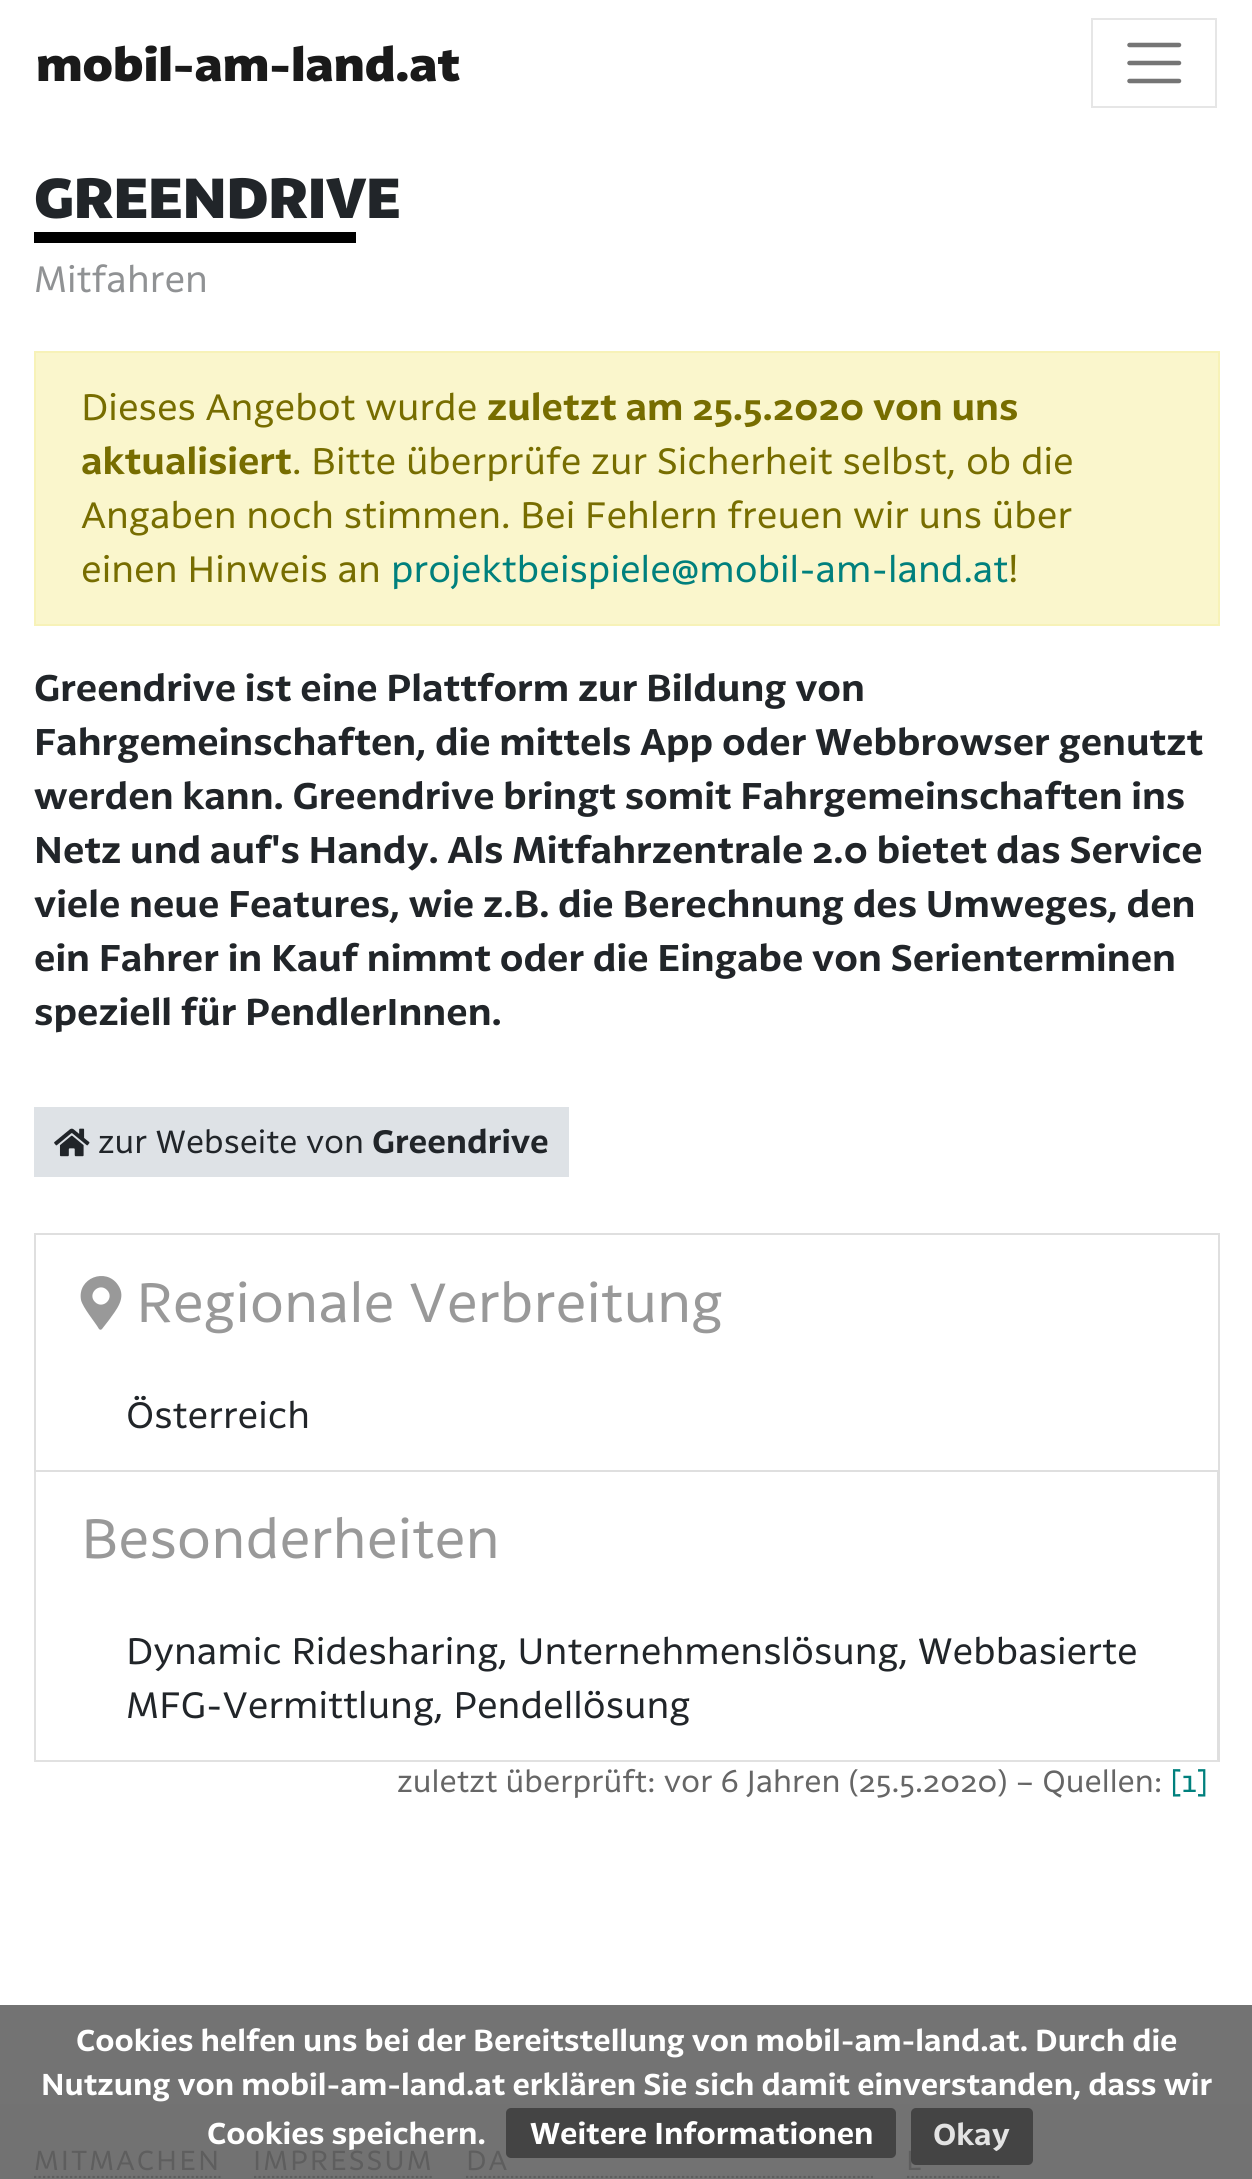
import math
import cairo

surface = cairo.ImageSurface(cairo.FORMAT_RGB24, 1252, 2179)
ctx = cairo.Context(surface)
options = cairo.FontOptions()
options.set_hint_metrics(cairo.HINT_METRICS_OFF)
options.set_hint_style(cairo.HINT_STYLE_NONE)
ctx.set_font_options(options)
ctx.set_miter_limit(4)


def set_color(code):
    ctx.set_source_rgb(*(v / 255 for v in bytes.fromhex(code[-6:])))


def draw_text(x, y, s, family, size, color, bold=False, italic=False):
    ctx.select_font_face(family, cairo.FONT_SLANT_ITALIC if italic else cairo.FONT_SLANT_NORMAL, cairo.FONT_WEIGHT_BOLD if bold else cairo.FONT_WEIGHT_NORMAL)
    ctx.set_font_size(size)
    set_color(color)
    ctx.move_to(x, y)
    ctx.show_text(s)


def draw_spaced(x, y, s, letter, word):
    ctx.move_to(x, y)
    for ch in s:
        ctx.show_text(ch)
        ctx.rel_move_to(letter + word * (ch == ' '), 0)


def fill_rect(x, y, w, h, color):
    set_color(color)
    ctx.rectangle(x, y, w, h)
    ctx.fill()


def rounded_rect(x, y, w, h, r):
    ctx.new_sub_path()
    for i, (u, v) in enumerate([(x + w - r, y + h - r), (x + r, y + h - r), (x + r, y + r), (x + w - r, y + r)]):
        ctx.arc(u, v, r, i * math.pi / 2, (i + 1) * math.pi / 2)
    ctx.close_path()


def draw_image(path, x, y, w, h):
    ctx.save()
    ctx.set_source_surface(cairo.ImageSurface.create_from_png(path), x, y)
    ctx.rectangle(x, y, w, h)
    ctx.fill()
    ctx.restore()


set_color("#ffffff")
ctx.paint()
fill_rect(0, 2005, 1252, 99, "#737373")
draw_text(36, 81, "mobil-am-land.at", "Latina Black", 45, "#1a1a1a")
ctx.rectangle(1092, 19, 124, 88)
set_color("#e6e6e6")
ctx.stroke()
ctx.new_path()
ctx.move_to(1129.5, 45)
ctx.line_to(1179, 45)
ctx.move_to(1129.5, 63)
ctx.line_to(1179, 63)
ctx.move_to(1129.5, 81)
ctx.line_to(1179, 81)
set_color("#757575")
ctx.set_line_width(4.5)
ctx.set_line_cap(cairo.LINE_CAP_ROUND)
ctx.stroke()
ctx.set_font_size(54)
set_color("#212529")
draw_spaced(34, 218, "GREENDRIVE", -0.5, 0)
fill_rect(34, 232, 322, 11, "#000000")
draw_text(34, 292, "Mitfahren", "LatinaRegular", 36, "#909294")
set_color("#faf6cc")
ctx.rectangle(35, 352, 1184, 273)
ctx.fill_preserve()
set_color("#f7f2b8")
ctx.set_line_width(2)
ctx.set_line_cap(cairo.LINE_CAP_BUTT)
ctx.stroke()
draw_text(81, 420, "Dieses Angebot wurde", "LatinaRegular", 36, "#776d00")
draw_text(487, 420, "zuletzt am 25.5.2020 von uns", "Latina", 36, "#776d00", bold=True)
draw_text(81, 474, "aktualisiert", "Latina", 36, "#776d00", bold=True)
draw_text(292, 474, ". Bitte überprüfe zur Sicherheit selbst, ob die", "LatinaRegular", 36, "#776d00")
draw_text(81, 528, "Angaben noch stimmen. Bei Fehlern freuen wir uns über", "LatinaRegular", 36, "#776d00")
draw_text(81, 582, "einen Hinweis an", "LatinaRegular", 36, "#776d00")
draw_text(391, 582, "projektbeispiele@mobil-am-land.at", "LatinaRegular", 36, "#00807d")
draw_text(1008, 582, "!", "LatinaRegular", 36, "#776d00")
draw_text(34, 701, "Greendrive ist eine Plattform zur Bildung von", "Latina", 36, "#212529", bold=True)
draw_text(34, 755, "Fahrgemeinschaften, die mittels App oder Webbrowser genutzt", "Latina", 36, "#212529", bold=True)
draw_text(34, 809, "werden kann. Greendrive bringt somit Fahrgemeinschaften ins", "Latina", 36, "#212529", bold=True)
draw_text(34, 863, "Netz und auf's Handy. Als Mitfahrzentrale 2.0 bietet das Service", "Latina", 36, "#212529", bold=True)
draw_text(34, 917, "viele neue Features, wie z.B. die Berechnung des Umweges, den", "Latina", 36, "#212529", bold=True)
draw_text(34, 971, "ein Fahrer in Kauf nimmt oder die Eingabe von Serienterminen", "Latina", 36, "#212529", bold=True)
draw_text(34, 1025, "speziell für PendlerInnen.", "Latina", 36, "#212529", bold=True)
fill_rect(34, 1107, 535, 70, "#dee2e6")
draw_image("assets/img1.png", 54, 1128, 36, 29)
draw_text(98, 1153, "zur Webseite von", "LatinaRegular", 31.5, "#212529")
draw_text(372, 1153, "Greendrive", "Latina", 31.5, "#212529", bold=True)
ctx.rectangle(35, 1234, 1184, 237)
set_color("#dfdfdf")
ctx.stroke()
set_color("#999999")
ctx.new_path()
ctx.move_to(99, 1329)
ctx.curve_to(95, 1322, 83, 1308, 81, 1300)
ctx.curve_to(77, 1278, 106, 1267, 118, 1285)
ctx.curve_to(127, 1298, 116, 1310, 109, 1320)
ctx.line_to(102, 1329)
ctx.curve_to(101, 1330, 100, 1330, 99, 1329)
ctx.close_path()
ctx.move_to(95, 1302)
ctx.curve_to(103, 1310, 115, 1298, 107, 1290)
ctx.curve_to(99, 1282, 87, 1294, 95, 1302)
ctx.close_path()
ctx.fill()
draw_text(136, 1322, "Regionale Verbreitung", "LatinaRegular", 54, "#999999")
draw_text(126, 1428, "Österreich", "LatinaRegular", 36, "#212529")
set_color("#dfdfdf")
ctx.new_path()
ctx.move_to(1220, 1472)
ctx.line_to(1220, 1762)
ctx.line_to(1217, 1760)
ctx.line_to(1217, 1472)
ctx.close_path()
ctx.fill()
ctx.set_source_rgba(0, 0, 0, 0.12)
ctx.new_path()
ctx.move_to(1220, 1762)
ctx.line_to(34, 1762)
ctx.line_to(36, 1760)
ctx.line_to(1217, 1760)
ctx.close_path()
ctx.fill()
ctx.new_path()
ctx.move_to(34, 1762)
ctx.line_to(34, 1472)
ctx.line_to(36, 1472)
ctx.line_to(36, 1760)
ctx.close_path()
ctx.fill()
draw_text(81, 1558, "Besonderheiten", "LatinaRegular", 54, "#999999")
draw_text(126, 1664, "Dynamic Ridesharing, Unternehmenslösung, Webbasierte", "LatinaRegular", 36, "#212529")
draw_text(126, 1718, "MFG-Vermittlung, Pendellösung", "LatinaRegular", 36, "#212529")
draw_text(397, 1792, "zuletzt überprüft: vor 6 Jahren (25.5.2020) – Quellen:", "LatinaRegular", 30, "#666666")
draw_text(1170, 1792, "[1]", "LatinaRegular", 30, "#00807d")
draw_text(76, 2051, "Cookies helfen uns bei der Bereitstellung von mobil-am-land.at. Durch die", "Latina", 29.25, "#ffffff", bold=True)
draw_text(41, 2095, "Nutzung von mobil-am-land.at erklären Sie sich damit einverstanden, dass wir", "Latina", 29.25, "#ffffff", bold=True)
fill_rect(0, 2104, 1252, 75, "#727272")
draw_text(207, 2144, "Cookies speichern.", "Latina", 29.25, "#ffffff", bold=True)
ctx.select_font_face("LatinaRegular")
ctx.set_font_size(27)
set_color("#5e5e5e")
draw_spaced(466, 2170, "DA", 2, 0)
ctx.set_source_rgba(0.235, 0.235, 0.235, 0.85)
rounded_rect(506, 2108, 390, 50, 5)
ctx.fill()
draw_text(530, 2144, "Weitere Informationen", "Latina", 29.25, "#ffffff", bold=True)
ctx.select_font_face("LatinaRegular")
ctx.set_font_size(27)
set_color("#5e5e5e")
draw_spaced(906, 2170, "L", 2, 0)
ctx.set_source_rgba(0.235, 0.235, 0.235, 0.85)
rounded_rect(911, 2108, 122, 57, 5)
ctx.fill()
draw_text(933, 2145, "Okay", "Latina", 29.25, "#e3e3e3", bold=True)
ctx.select_font_face("LatinaRegular")
ctx.set_font_size(27)
set_color("#5e5e5e")
draw_spaced(34, 2170, "MITMACHEN", 2, 0)
ctx.new_path()
ctx.move_to(34, 2177)
ctx.line_to(220.5, 2177)
ctx.set_line_width(2.2)
ctx.set_dash([2.25, 2.25])
ctx.stroke()
draw_spaced(253, 2170, "IMPRESSUM", 2, 0)
ctx.new_path()
ctx.move_to(254, 2177)
ctx.line_to(434, 2177)
ctx.stroke()
ctx.new_path()
ctx.move_to(466, 2177)
ctx.line_to(873, 2177)
ctx.stroke()
ctx.new_path()
ctx.move_to(907, 2177)
ctx.line_to(1001, 2177)
ctx.stroke()
surface.write_to_png("output.png")
